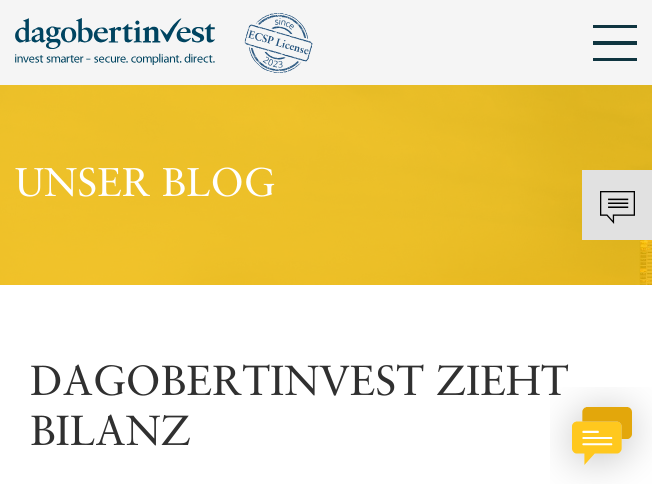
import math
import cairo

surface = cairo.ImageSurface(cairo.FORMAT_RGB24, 652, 486)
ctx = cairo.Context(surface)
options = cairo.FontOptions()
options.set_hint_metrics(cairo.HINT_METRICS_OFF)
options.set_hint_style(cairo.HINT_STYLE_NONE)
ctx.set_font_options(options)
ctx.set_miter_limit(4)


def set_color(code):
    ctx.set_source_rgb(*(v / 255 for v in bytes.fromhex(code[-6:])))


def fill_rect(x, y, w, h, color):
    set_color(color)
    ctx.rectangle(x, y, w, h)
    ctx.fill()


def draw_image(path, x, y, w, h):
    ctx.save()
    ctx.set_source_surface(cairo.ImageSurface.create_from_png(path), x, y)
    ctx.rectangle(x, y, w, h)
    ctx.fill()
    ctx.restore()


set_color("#ffffff")
ctx.paint()
fill_rect(0, 0, 652, 85, "#f5f5f5")
draw_image("assets/img1.png", 15, 18, 200, 47)
draw_image("assets/img2.png", 244, 13, 69, 60)
set_color("#0f3540")
ctx.new_path()
ctx.move_to(593, 25)
ctx.line_to(637, 25)
ctx.line_to(637, 28)
ctx.line_to(593, 28)
ctx.close_path()
ctx.move_to(593, 41)
ctx.line_to(637, 41)
ctx.line_to(637, 45)
ctx.line_to(593, 45)
ctx.close_path()
ctx.move_to(593, 58)
ctx.line_to(637, 58)
ctx.line_to(637, 61)
ctx.line_to(593, 61)
ctx.close_path()
ctx.fill()
draw_image("assets/img3.png", 0, 85, 652, 200)
draw_image("assets/img4.png", 15, 167, 260, 30)
draw_image("assets/img5.png", 31, 364, 538, 32)
draw_image("assets/img6.png", 31, 414, 159, 32)
fill_rect(582, 170, 70, 70, "#e1e1e1")
draw_image("assets/img7.png", 600, 191, 35, 33)
draw_image("assets/img8.png", 550, 387, 102, 97)
surface.write_to_png("output.png")
